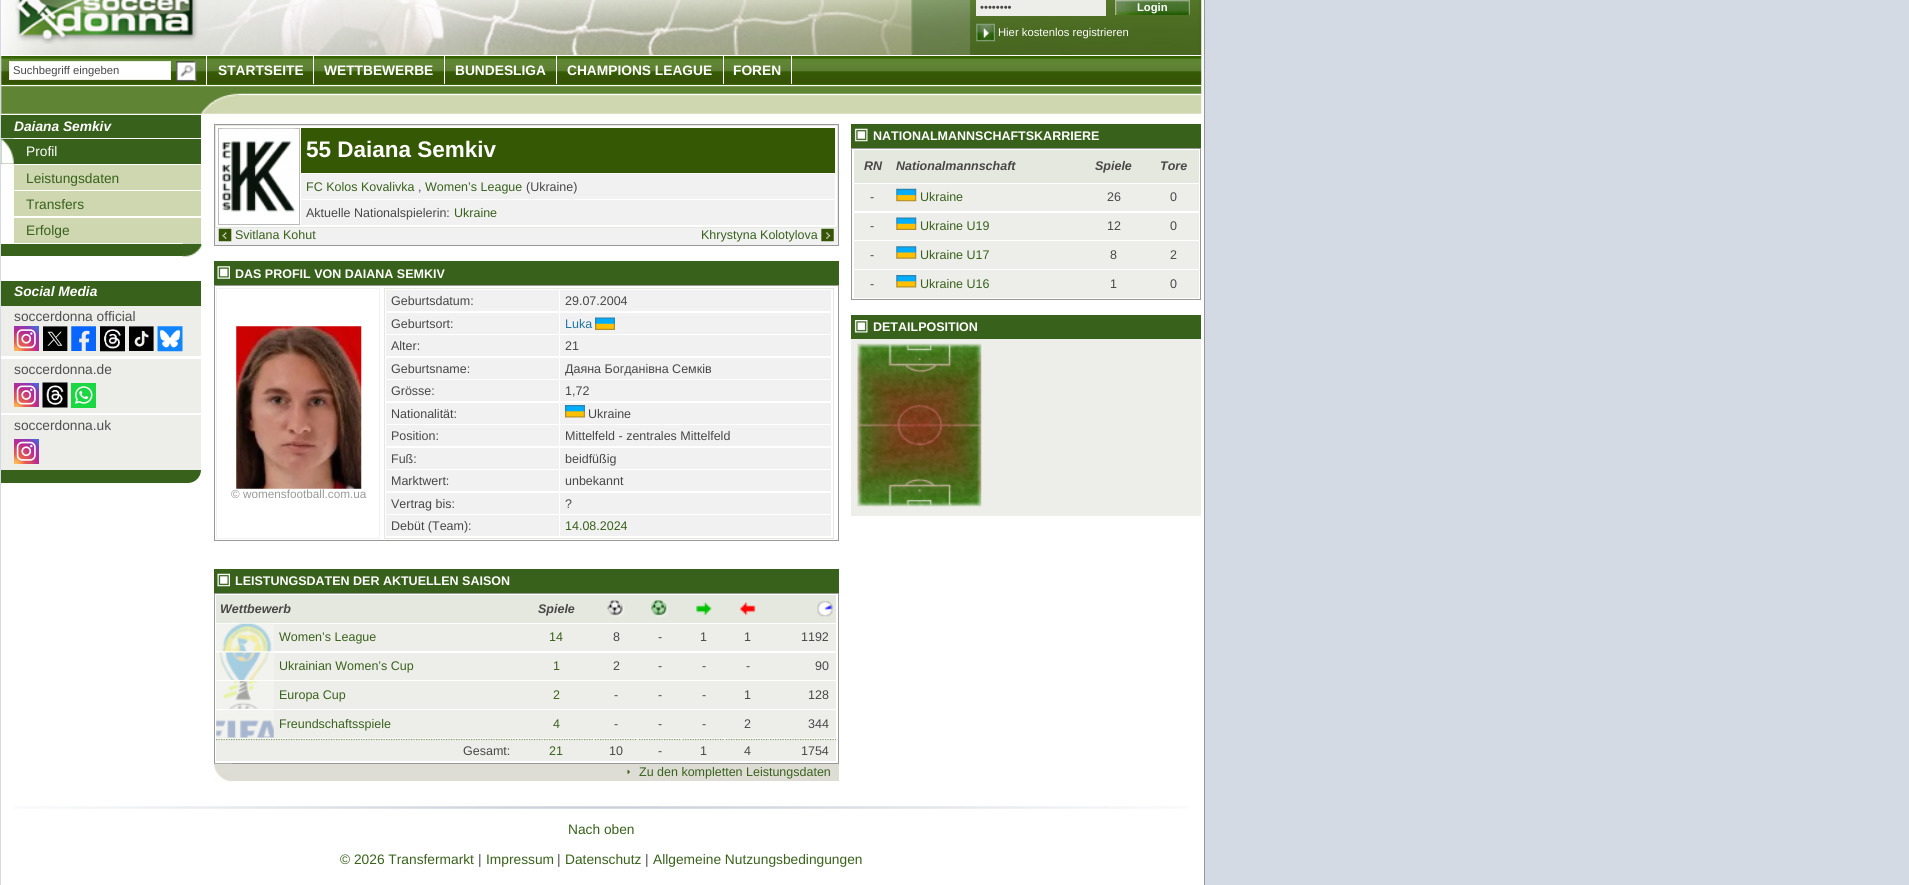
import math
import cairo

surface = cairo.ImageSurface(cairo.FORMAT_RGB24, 1909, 885)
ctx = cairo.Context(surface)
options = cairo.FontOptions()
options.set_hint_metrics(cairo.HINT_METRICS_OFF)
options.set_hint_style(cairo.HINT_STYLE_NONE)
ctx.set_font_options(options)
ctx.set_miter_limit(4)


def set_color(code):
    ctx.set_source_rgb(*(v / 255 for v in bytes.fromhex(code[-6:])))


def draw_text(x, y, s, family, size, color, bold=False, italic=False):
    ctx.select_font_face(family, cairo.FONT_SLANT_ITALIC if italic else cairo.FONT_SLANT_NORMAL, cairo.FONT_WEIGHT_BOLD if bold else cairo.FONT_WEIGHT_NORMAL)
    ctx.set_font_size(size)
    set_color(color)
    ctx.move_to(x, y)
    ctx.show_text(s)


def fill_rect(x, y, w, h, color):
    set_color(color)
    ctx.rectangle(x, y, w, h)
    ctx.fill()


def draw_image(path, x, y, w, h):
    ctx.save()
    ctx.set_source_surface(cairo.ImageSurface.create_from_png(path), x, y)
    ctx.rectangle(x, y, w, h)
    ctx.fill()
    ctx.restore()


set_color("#d4dae3")
ctx.paint()
fill_rect(1, 0, 1203, 885, "#ffffff")
draw_image("assets/img1.png", 1, 0, 1201, 55)
draw_image("assets/img2.png", 15, 0, 183, 44)
fill_rect(976, 0, 130, 16, "#edeee9")
draw_text(980, 11, "••••••••", "Liberation Sans", 11.25, "#484747")
draw_image("assets/img3.png", 1115, 0, 75, 15)
draw_text(1137, 11, "Login", "Liberation Sans", 11.25, "#ffffff", bold=True)
draw_image("assets/img4.png", 976, 23, 19, 19)
draw_text(998, 36, "Hier kostenlos registrieren", "Liberation Sans", 11.25, "#ffffff")
draw_image("assets/img5.png", 1, 55, 1201, 32)
fill_rect(1, 55, 1200, 1, "#ffffff")
fill_rect(1, 85, 1200, 1, "#ffffff")
fill_rect(206, 56, 1, 29, "#ffffff")
ctx.rectangle(9.5, 61.5, 161, 18)
ctx.fill_preserve()
set_color("#edeee9")
ctx.set_line_width(1)
ctx.stroke()
draw_text(13, 74, "Suchbegriff eingeben", "Liberation Sans", 11.25, "#484747")
draw_image("assets/img6.png", 176, 61, 21, 21)
fill_rect(313, 56, 1, 28, "#ffffff")
draw_text(218, 75, "STARTSEITE", "Liberation Sans", 13.75, "#ffffff", bold=True)
fill_rect(444, 56, 1, 28, "#ffffff")
draw_text(324, 75, "WETTBEWERBE", "Liberation Sans", 13.75, "#ffffff", bold=True)
fill_rect(556, 56, 1, 28, "#ffffff")
draw_text(455, 75, "BUNDESLIGA", "Liberation Sans", 13.75, "#ffffff", bold=True)
fill_rect(723, 56, 1, 28, "#ffffff")
draw_text(567, 75, "CHAMPIONS LEAGUE", "Liberation Sans", 13.75, "#ffffff", bold=True)
fill_rect(791, 56, 1, 28, "#ffffff")
draw_text(733, 75, "FOREN", "Liberation Sans", 13.75, "#ffffff", bold=True)
draw_image("assets/img7.png", 1, 86, 1201, 28)
fill_rect(1204, 0, 1, 885, "#999999")
fill_rect(1, 115, 200, 23, "#38611b")
draw_text(14, 131, "Daiana Semkiv", "Liberation Sans", 13.75, "#ffffff", bold=True, italic=True)
fill_rect(1, 139, 200, 25, "#38611b")
draw_image("assets/img8.png", 1, 138, 13, 26)
draw_text(26, 156, "Profil", "Liberation Sans", 13.75, "#ffffff")
fill_rect(14, 165, 187, 25, "#ced7af")
draw_text(26, 183, "Leistungsdaten", "Liberation Sans", 13.75, "#38611b")
fill_rect(14, 191, 187, 25, "#ced7af")
draw_text(26, 209, "Transfers", "Liberation Sans", 13.75, "#38611b")
fill_rect(14, 218, 187, 25, "#ced7af")
draw_text(26, 235, "Erfolge", "Liberation Sans", 13.75, "#38611b")
fill_rect(1, 244, 182, 12, "#38611b")
draw_image("assets/img9.png", 182, 243, 20, 14)
fill_rect(1, 281, 200, 25, "#38611b")
draw_text(14, 296, "Social Media", "Liberation Sans", 13.75, "#ffffff", bold=True, italic=True)
fill_rect(1, 306, 200, 50, "#edeee9")
draw_text(14, 321, "soccerdonna official", "Liberation Sans", 13.75, "#4f4f4f")
draw_image("assets/img10.png", 14, 326, 25, 25)
draw_image("assets/img11.png", 43, 326, 25, 25)
draw_image("assets/img12.png", 71, 326, 25, 25)
draw_image("assets/img13.png", 100, 326, 25, 26)
draw_image("assets/img14.png", 129, 326, 25, 25)
draw_image("assets/img15.png", 157, 326, 26, 26)
fill_rect(1, 359, 200, 54, "#edeee9")
draw_text(14, 374, "soccerdonna.de", "Liberation Sans", 13.75, "#4f4f4f")
draw_image("assets/img16.png", 14, 383, 25, 24)
draw_image("assets/img17.png", 42, 382, 26, 26)
draw_image("assets/img18.png", 71, 383, 25, 25)
fill_rect(1, 415, 200, 55, "#edeee9")
draw_text(14, 430, "soccerdonna.uk", "Liberation Sans", 13.75, "#4f4f4f")
draw_image("assets/img19.png", 14, 439, 25, 25)
set_color("#38611b")
ctx.new_path()
ctx.move_to(1, 470)
ctx.line_to(201, 470)
ctx.curve_to(201, 477, 195, 483, 188, 483)
ctx.line_to(1, 483)
ctx.close_path()
ctx.fill()
fill_rect(215, 228, 623, 17, "#f1f1f1")
ctx.rectangle(214.5, 124.5, 624, 121)
set_color("#999999")
ctx.stroke()
ctx.rectangle(215.5, 125.5, 622, 102)
set_color("#e5e8de")
ctx.stroke()
ctx.rectangle(218.5, 128.5, 81, 96)
set_color("#bbbbbb")
ctx.stroke()
draw_image("assets/img20.png", 222, 128, 73, 84)
fill_rect(301, 128, 534, 45, "#355804")
draw_text(306, 157, "55 Daiana Semkiv", "Liberation Sans", 22.5, "#ffffff", bold=True)
fill_rect(301, 174, 534, 25, "#f1f1f1")
draw_text(306, 191, "FC Kolos Kovalivka", "Liberation Sans", 12.5, "#38611b")
draw_text(418, 191, ",", "Liberation Sans", 12.5, "#484747")
draw_text(425, 191, "Women’s League", "Liberation Sans", 12.5, "#38611b")
draw_text(526, 191, "(Ukraine)", "Liberation Sans", 12.5, "#484747")
fill_rect(301, 200, 534, 25, "#f1f1f1")
draw_text(306, 217, "Aktuelle Nationalspielerin:", "Liberation Sans", 12.5, "#484747")
draw_text(454, 217, "Ukraine", "Liberation Sans", 12.5, "#38611b")
draw_image("assets/img21.png", 218, 228, 14, 14)
draw_text(235, 239, "Svitlana Kohut", "Liberation Sans", 12.5, "#38611b")
draw_text(701, 239, "Khrystyna Kolotylova", "Liberation Sans", 12.5, "#38611b")
draw_image("assets/img22.png", 821, 228, 13, 14)
fill_rect(214, 261, 625, 24, "#38611b")
draw_image("assets/img23.png", 217, 266, 13, 13)
draw_text(235, 278, "DAS PROFIL VON DAIANA SEMKIV", "Liberation Sans", 12.5, "#ffffff", bold=True)
ctx.rectangle(214.5, 285.5, 624, 255)
set_color("#999999")
ctx.stroke()
ctx.rectangle(216.5, 288.5, 163, 250)
set_color("#f1f1f1")
ctx.stroke()
draw_image("assets/img24.png", 236, 326, 126, 163)
draw_text(231, 498, "© womensfootball.com.ua", "Liberation Sans", 11.75, "#999999")
ctx.rectangle(384.5, 288.5, 449, 250)
set_color("#e5e8de")
ctx.stroke()
fill_rect(386, 290, 173, 21, "#f1f1f1")
draw_text(391, 305, "Geburtsdatum:", "Liberation Sans", 12.5, "#484747")
fill_rect(560, 290, 271, 21, "#f1f1f1")
draw_text(565, 305, "29.07.2004", "Liberation Sans", 12.5, "#484747")
fill_rect(386, 313, 173, 21, "#f1f1f1")
draw_text(391, 328, "Geburtsort:", "Liberation Sans", 12.5, "#484747")
fill_rect(560, 313, 271, 21, "#f1f1f1")
draw_text(565, 328, "Luka", "Liberation Sans", 12.5, "#1d75a3")
draw_image("assets/img25.png", 595, 317, 20, 13)
fill_rect(386, 335, 173, 21, "#f1f1f1")
draw_text(391, 350, "Alter:", "Liberation Sans", 12.5, "#484747")
fill_rect(560, 335, 271, 21, "#f1f1f1")
draw_text(565, 350, "21", "Liberation Sans", 12.5, "#484747")
fill_rect(386, 358, 173, 21, "#f1f1f1")
draw_text(391, 373, "Geburtsname:", "Liberation Sans", 12.5, "#484747")
fill_rect(560, 358, 271, 21, "#f1f1f1")
draw_text(565, 373, "Даяна Богданівна Семків", "Liberation Sans", 12.5, "#484747")
fill_rect(386, 380, 173, 21, "#f1f1f1")
draw_text(391, 395, "Grösse:", "Liberation Sans", 12.5, "#484747")
fill_rect(560, 380, 271, 21, "#f1f1f1")
draw_text(565, 395, "1,72", "Liberation Sans", 12.5, "#484747")
fill_rect(386, 403, 173, 21, "#f1f1f1")
draw_text(391, 418, "Nationalität:", "Liberation Sans", 12.5, "#484747")
fill_rect(560, 403, 271, 21, "#f1f1f1")
draw_image("assets/img26.png", 565, 405, 20, 13)
draw_text(588, 418, "Ukraine", "Liberation Sans", 12.5, "#484747")
fill_rect(386, 425, 173, 21, "#f1f1f1")
draw_text(391, 440, "Position:", "Liberation Sans", 12.5, "#484747")
fill_rect(560, 425, 271, 21, "#f1f1f1")
draw_text(565, 440, "Mittelfeld - zentrales Mittelfeld", "Liberation Sans", 12.5, "#484747")
fill_rect(386, 448, 173, 21, "#f1f1f1")
draw_text(391, 463, "Fuß:", "Liberation Sans", 12.5, "#484747")
fill_rect(560, 448, 271, 21, "#f1f1f1")
draw_text(565, 463, "beidfüßig", "Liberation Sans", 12.5, "#484747")
fill_rect(386, 470, 173, 21, "#f1f1f1")
draw_text(391, 485, "Marktwert:", "Liberation Sans", 12.5, "#484747")
fill_rect(560, 470, 271, 21, "#f1f1f1")
draw_text(565, 485, "unbekannt", "Liberation Sans", 12.5, "#484747")
fill_rect(386, 493, 173, 21, "#f1f1f1")
draw_text(391, 508, "Vertrag bis:", "Liberation Sans", 12.5, "#484747")
fill_rect(560, 493, 271, 21, "#f1f1f1")
draw_text(565, 508, "?", "Liberation Sans", 12.5, "#484747")
fill_rect(386, 515, 173, 21, "#f1f1f1")
draw_text(391, 530, "Debüt (Team):", "Liberation Sans", 12.5, "#484747")
fill_rect(560, 515, 271, 21, "#f1f1f1")
draw_text(565, 530, "14.08.2024", "Liberation Sans", 12.5, "#38611b")
fill_rect(851, 124, 350, 24, "#38611b")
draw_image("assets/img27.png", 854, 128, 14, 14)
draw_text(873, 140, "NATIONALMANNSCHAFTSKARRIERE", "Liberation Sans", 12.5, "#ffffff", bold=True)
ctx.rectangle(851.5, 148.5, 349, 151)
set_color("#999999")
ctx.stroke()
fill_rect(854, 150, 345, 33, "#e5e8de")
draw_text(864, 170, "RN", "Liberation Sans", 12.5, "#484747", bold=True, italic=True)
draw_text(896, 170, "Nationalmannschaft", "Liberation Sans", 12.5, "#484747", bold=True, italic=True)
draw_text(1095, 170, "Spiele", "Liberation Sans", 12.5, "#484747", bold=True, italic=True)
draw_text(1160, 170, "Tore", "Liberation Sans", 12.5, "#484747", bold=True, italic=True)
fill_rect(854, 184, 345, 27, "#edeee9")
draw_text(870, 201, "-", "Liberation Sans", 12.5, "#484747")
draw_image("assets/img28.png", 896, 188, 21, 14)
draw_text(920, 201, "Ukraine", "Liberation Sans", 12.5, "#38611b")
draw_text(1107, 201, "26", "Liberation Sans", 12.5, "#484747")
draw_text(1170, 201, "0", "Liberation Sans", 12.5, "#484747")
fill_rect(854, 213, 345, 27, "#edeee9")
draw_text(870, 230, "-", "Liberation Sans", 12.5, "#484747")
draw_image("assets/img29.png", 896, 217, 21, 13)
draw_text(920, 230, "Ukraine U19", "Liberation Sans", 12.5, "#38611b")
draw_text(1107, 230, "12", "Liberation Sans", 12.5, "#484747")
draw_text(1170, 230, "0", "Liberation Sans", 12.5, "#484747")
fill_rect(854, 241, 345, 28, "#edeee9")
draw_text(870, 259, "-", "Liberation Sans", 12.5, "#484747")
draw_image("assets/img30.png", 896, 246, 21, 13)
draw_text(920, 259, "Ukraine U17", "Liberation Sans", 12.5, "#38611b")
draw_text(1110, 259, "8", "Liberation Sans", 12.5, "#484747")
draw_text(1170, 259, "2", "Liberation Sans", 12.5, "#484747")
fill_rect(854, 270, 345, 28, "#edeee9")
draw_text(870, 288, "-", "Liberation Sans", 12.5, "#484747")
draw_image("assets/img31.png", 896, 275, 21, 13)
draw_text(920, 288, "Ukraine U16", "Liberation Sans", 12.5, "#38611b")
draw_text(1110, 288, "1", "Liberation Sans", 12.5, "#484747")
draw_text(1170, 288, "0", "Liberation Sans", 12.5, "#484747")
fill_rect(851, 315, 350, 24, "#38611b")
draw_image("assets/img32.png", 854, 320, 14, 13)
draw_text(873, 331, "DETAILPOSITION", "Liberation Sans", 12.5, "#ffffff", bold=True)
fill_rect(851, 339, 350, 177, "#edeee9")
draw_image("assets/img33.png", 857, 343, 125, 164)
fill_rect(214, 569, 625, 24, "#38611b")
draw_image("assets/img34.png", 217, 573, 13, 14)
draw_text(235, 585, "LEISTUNGSDATEN DER AKTUELLEN SAISON", "Liberation Sans", 12.5, "#ffffff", bold=True)
ctx.rectangle(214.5, 593.5, 624, 170)
set_color("#999999")
ctx.stroke()
fill_rect(216, 595, 620, 28, "#e5e8de")
draw_text(220, 613, "Wettbewerb", "Liberation Sans", 12.5, "#484747", bold=True, italic=True)
draw_text(538, 613, "Spiele", "Liberation Sans", 12.5, "#484747", bold=True, italic=True)
draw_image("assets/img35.png", 607, 600, 18, 17)
draw_image("assets/img36.png", 651, 600, 17, 17)
draw_image("assets/img37.png", 696, 602, 16, 14)
draw_image("assets/img38.png", 739, 602, 17, 14)
draw_image("assets/img39.png", 817, 601, 16, 16)
fill_rect(216, 624, 620, 27, "#edeee9")
draw_image("assets/img40.png", 216, 623, 58, 29)
draw_text(279, 641, "Women’s League", "Liberation Sans", 12.5, "#38611b")
draw_text(549, 641, "14", "Liberation Sans", 12.5, "#38611b")
draw_text(613, 641, "8", "Liberation Sans", 12.5, "#484747")
draw_text(658, 641, "-", "Liberation Sans", 12.5, "#484747")
draw_text(700, 641, "1", "Liberation Sans", 12.5, "#484747")
draw_text(744, 641, "1", "Liberation Sans", 12.5, "#484747")
draw_text(801, 641, "1192", "Liberation Sans", 12.5, "#484747")
fill_rect(216, 653, 620, 27, "#edeee9")
draw_image("assets/img41.png", 216, 652, 58, 28)
draw_text(279, 670, "Ukrainian Women’s Cup", "Liberation Sans", 12.5, "#38611b")
draw_text(553, 670, "1", "Liberation Sans", 12.5, "#38611b")
draw_text(613, 670, "2", "Liberation Sans", 12.5, "#484747")
draw_text(658, 670, "-", "Liberation Sans", 12.5, "#484747")
draw_text(702, 670, "-", "Liberation Sans", 12.5, "#484747")
draw_text(746, 670, "-", "Liberation Sans", 12.5, "#484747")
draw_text(815, 670, "90", "Liberation Sans", 12.5, "#484747")
fill_rect(216, 681, 620, 28, "#edeee9")
draw_image("assets/img42.png", 216, 681, 58, 28)
draw_text(279, 699, "Europa Cup", "Liberation Sans", 12.5, "#38611b")
draw_text(553, 699, "2", "Liberation Sans", 12.5, "#38611b")
draw_text(614, 699, "-", "Liberation Sans", 12.5, "#484747")
draw_text(658, 699, "-", "Liberation Sans", 12.5, "#484747")
draw_text(702, 699, "-", "Liberation Sans", 12.5, "#484747")
draw_text(744, 699, "1", "Liberation Sans", 12.5, "#484747")
draw_text(808, 699, "128", "Liberation Sans", 12.5, "#484747")
fill_rect(216, 710, 620, 28, "#edeee9")
draw_image("assets/img43.png", 216, 710, 58, 28)
draw_text(279, 728, "Freundschaftsspiele", "Liberation Sans", 12.5, "#38611b")
draw_text(553, 728, "4", "Liberation Sans", 12.5, "#38611b")
draw_text(614, 728, "-", "Liberation Sans", 12.5, "#484747")
draw_text(658, 728, "-", "Liberation Sans", 12.5, "#484747")
draw_text(702, 728, "-", "Liberation Sans", 12.5, "#484747")
draw_text(744, 728, "2", "Liberation Sans", 12.5, "#484747")
draw_text(808, 728, "344", "Liberation Sans", 12.5, "#484747")
fill_rect(216, 739, 620, 22, "#edeee9")
ctx.new_path()
ctx.move_to(216, 739.5)
ctx.line_to(517.5, 739.5)
set_color("#869e6c")
ctx.set_line_width(1.2)
ctx.set_dash([1.25, 1.25])
ctx.stroke()
draw_text(463, 755, "Gesamt:", "Liberation Sans", 12.5, "#484747")
ctx.new_path()
ctx.move_to(519, 739.5)
ctx.line_to(594, 739.5)
set_color("#869e6c")
ctx.stroke()
draw_text(549, 755, "21", "Liberation Sans", 12.5, "#38611b")
ctx.new_path()
ctx.move_to(595, 739.5)
ctx.line_to(637.5, 739.5)
set_color("#869e6c")
ctx.stroke()
draw_text(609, 755, "10", "Liberation Sans", 12.5, "#484747")
ctx.new_path()
ctx.move_to(639, 739.5)
ctx.line_to(681, 739.5)
set_color("#869e6c")
ctx.stroke()
draw_text(658, 755, "-", "Liberation Sans", 12.5, "#484747")
ctx.new_path()
ctx.move_to(682.5, 739.5)
ctx.line_to(725, 739.5)
set_color("#869e6c")
ctx.stroke()
draw_text(700, 755, "1", "Liberation Sans", 12.5, "#484747")
ctx.new_path()
ctx.move_to(726, 739.5)
ctx.line_to(769, 739.5)
set_color("#869e6c")
ctx.stroke()
draw_text(744, 755, "4", "Liberation Sans", 12.5, "#484747")
ctx.new_path()
ctx.move_to(770, 739.5)
ctx.line_to(836, 739.5)
set_color("#869e6c")
ctx.stroke()
draw_text(801, 755, "1754", "Liberation Sans", 12.5, "#484747")
fill_rect(232, 764, 607, 17, "#ddddd5")
draw_image("assets/img44.png", 213, 763, 20, 19)
draw_image("assets/img45.png", 627, 769, 3, 5)
draw_text(639, 776, "Zu den kompletten Leistungsdaten", "Liberation Sans", 12.5, "#38611b")
draw_image("assets/img46.png", 14, 806, 1174, 3)
draw_text(568, 834, "Nach oben", "Liberation Sans", 13.75, "#38611b")
draw_text(340, 864, "© 2026 Transfermarkt", "Liberation Sans", 13.75, "#38611b")
draw_text(478, 864, "|", "Liberation Sans", 13.75, "#4f4f4f")
draw_text(486, 864, "Impressum", "Liberation Sans", 13.75, "#38611b")
draw_text(557, 864, "|", "Liberation Sans", 13.75, "#4f4f4f")
draw_text(565, 864, "Datenschutz", "Liberation Sans", 13.75, "#38611b")
draw_text(645, 864, "|", "Liberation Sans", 13.75, "#4f4f4f")
draw_text(653, 864, "Allgemeine Nutzungsbedingungen", "Liberation Sans", 13.75, "#38611b")
surface.write_to_png("output.png")
